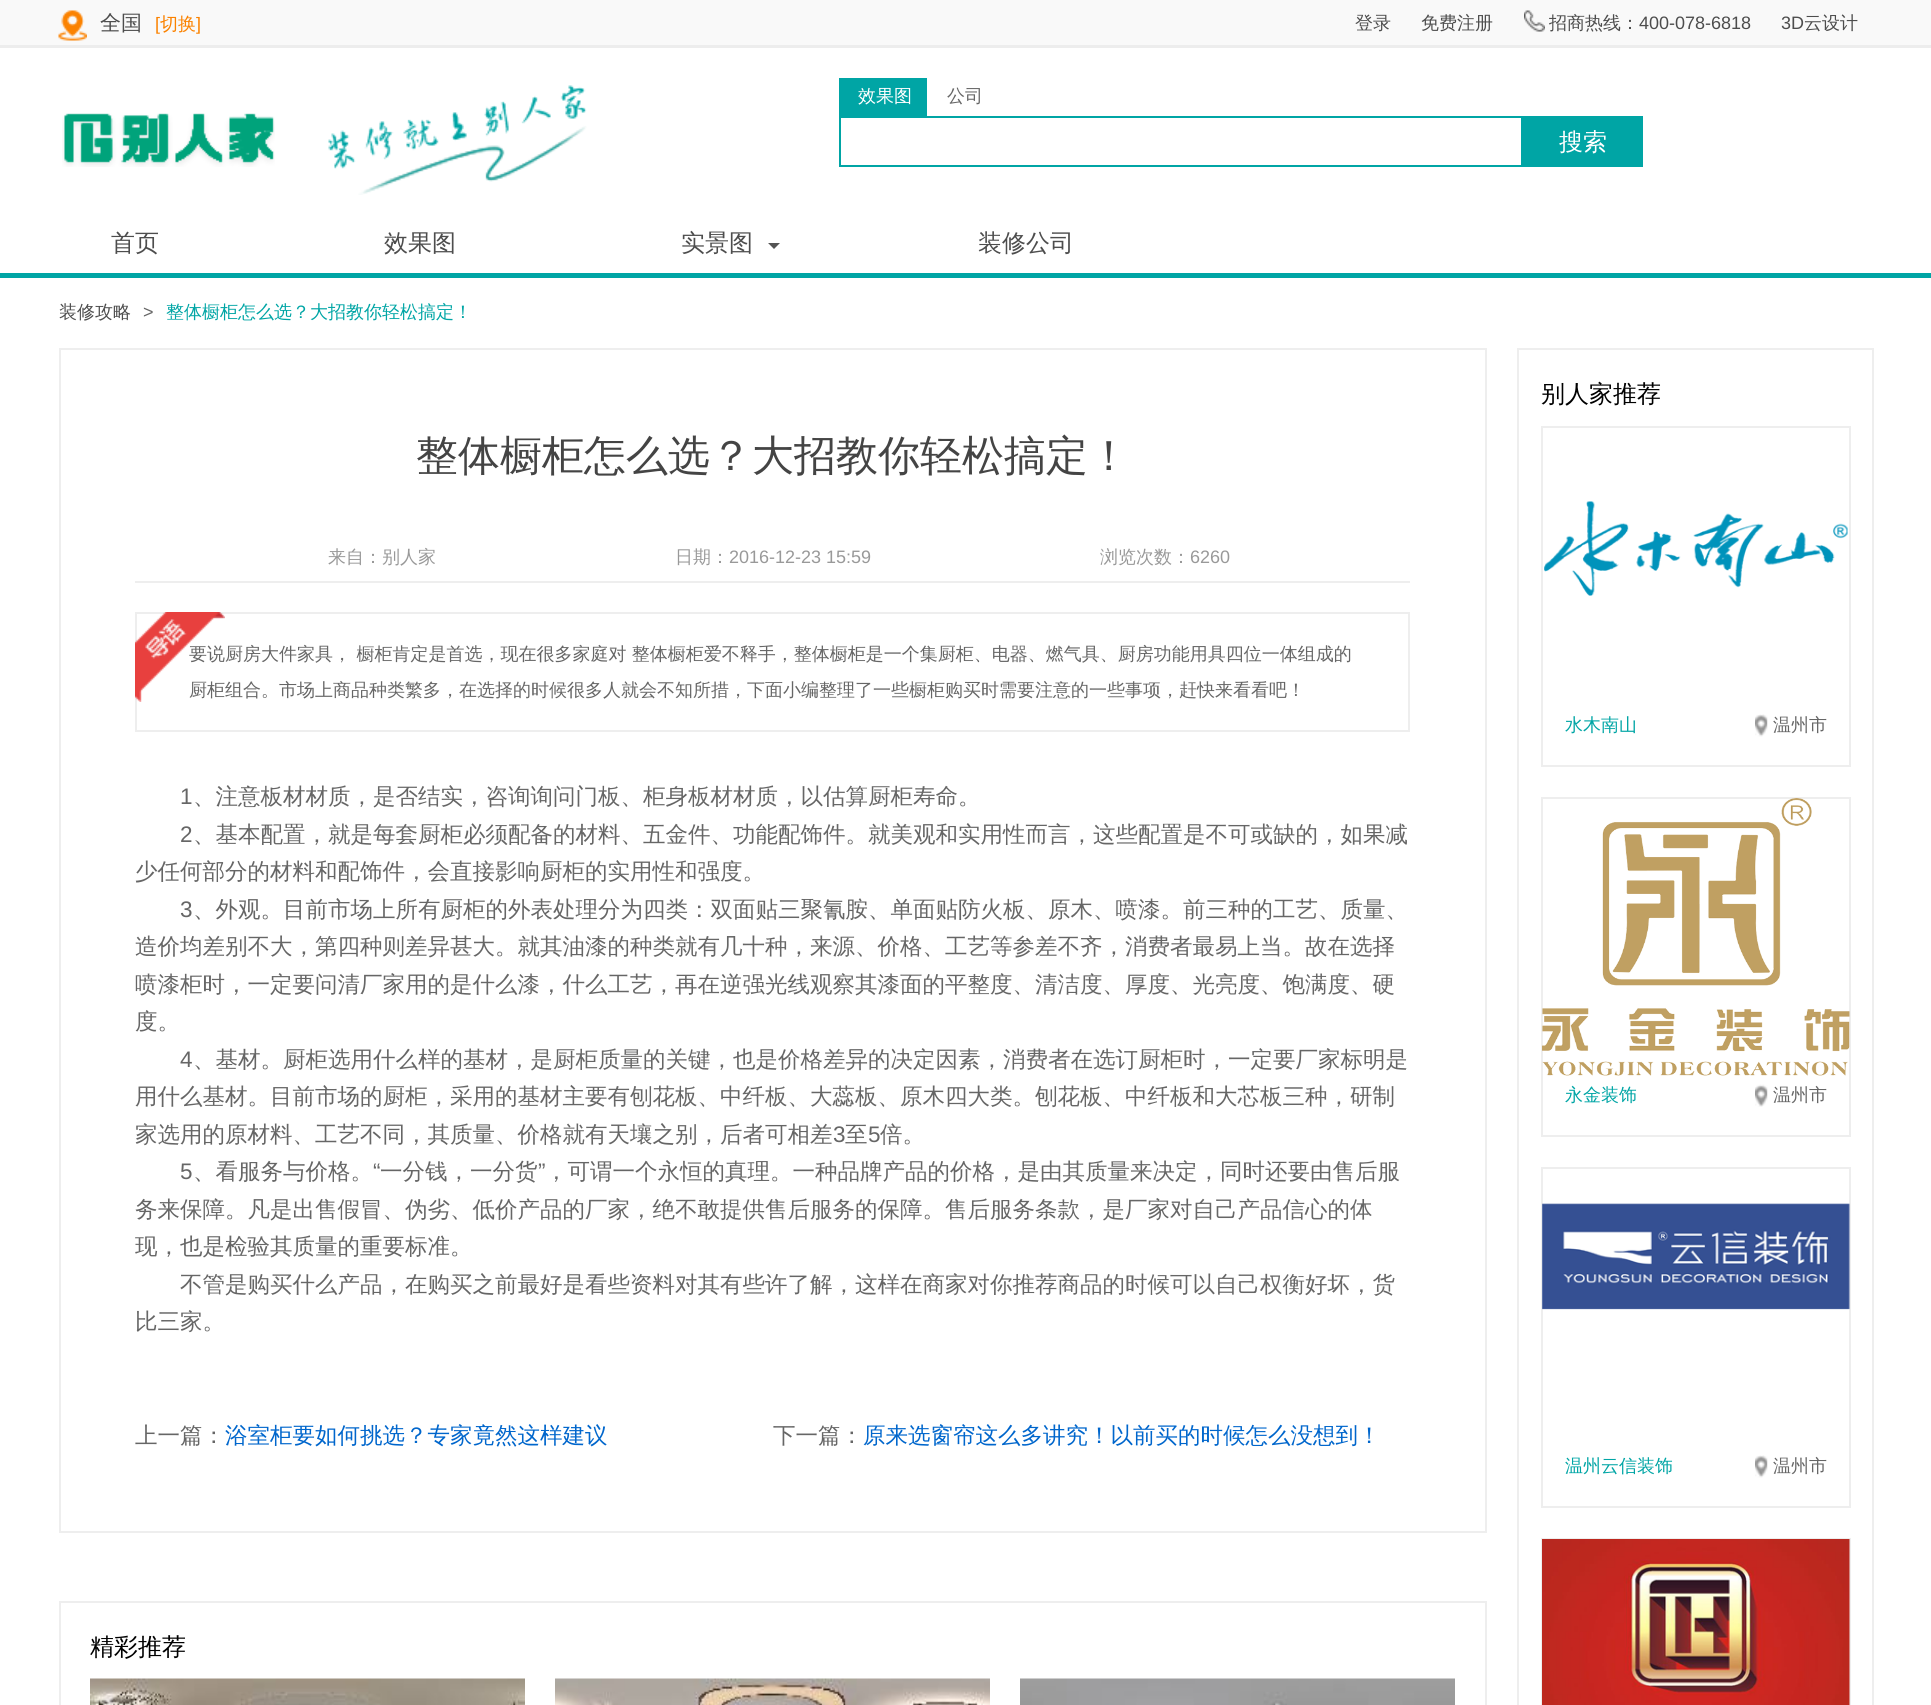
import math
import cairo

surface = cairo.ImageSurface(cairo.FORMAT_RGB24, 1931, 1705)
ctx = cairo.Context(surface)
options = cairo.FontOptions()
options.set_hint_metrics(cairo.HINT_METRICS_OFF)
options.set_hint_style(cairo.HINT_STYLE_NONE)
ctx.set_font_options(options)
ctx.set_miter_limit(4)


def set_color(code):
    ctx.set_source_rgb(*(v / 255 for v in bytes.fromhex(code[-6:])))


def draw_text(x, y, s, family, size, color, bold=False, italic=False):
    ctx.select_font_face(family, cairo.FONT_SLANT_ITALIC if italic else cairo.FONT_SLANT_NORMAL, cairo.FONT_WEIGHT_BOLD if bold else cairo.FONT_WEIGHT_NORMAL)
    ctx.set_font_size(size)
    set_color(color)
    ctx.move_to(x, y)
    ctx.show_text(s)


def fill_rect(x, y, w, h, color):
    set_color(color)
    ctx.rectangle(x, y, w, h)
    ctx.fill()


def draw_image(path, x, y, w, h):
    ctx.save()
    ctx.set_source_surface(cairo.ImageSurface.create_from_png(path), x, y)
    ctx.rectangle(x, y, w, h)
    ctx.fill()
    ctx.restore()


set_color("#ffffff")
ctx.paint()
fill_rect(0, 0, 1931, 45, "#f9f9f9")
fill_rect(0, 45, 1931, 3, "#ededed")
draw_image("assets/img1.png", 58, 10, 29, 31)
draw_text(100, 30, "全国", "WenQuanYi Zen Hei Medium", 21, "#4d4d4d")
draw_text(155, 30, "[", "Liberation Sans", 18, "#fb8200")
draw_text(160, 30, "切换", "WenQuanYi Zen Hei Medium", 18, "#fb8200")
draw_text(196, 30, "]", "Liberation Sans", 18, "#fb8200")
draw_text(1355, 29, "登录", "WenQuanYi Zen Hei Medium", 18, "#4d4d4d")
draw_text(1421, 29, "免费注册", "WenQuanYi Zen Hei Medium", 18, "#4d4d4d")
draw_image("assets/img2.png", 1524, 10, 21, 22)
draw_text(1549, 29, "招商热线：", "WenQuanYi Zen Hei Medium", 18, "#4d4d4d")
draw_text(1639, 29, "400-078-6818", "Liberation Sans", 18, "#4d4d4d")
draw_text(1781, 29, "3D", "Liberation Sans", 18, "#4d4d4d")
draw_text(1804, 29, "云设计", "WenQuanYi Zen Hei Medium", 18, "#4d4d4d")
draw_image("assets/img3.png", 62, 113, 213, 54)
draw_image("assets/img4.png", 328, 85, 259, 110)
fill_rect(839, 78, 88, 38, "#00a5a5")
draw_text(858, 102, "效果图", "WenQuanYi Zen Hei Medium", 18, "#ffffff")
draw_text(947, 102, "公司", "WenQuanYi Zen Hei Medium", 18, "#666666")
ctx.rectangle(840, 117, 682, 49)
set_color("#00a5a5")
ctx.stroke()
fill_rect(1523, 116, 120, 51, "#00a5a5")
draw_text(1559, 150, "搜索", "WenQuanYi Zen Hei Medium", 24, "#ffffff")
fill_rect(0, 273, 1931, 5, "#00a5a5")
draw_text(111, 251, "首页", "WenQuanYi Zen Hei Medium", 24, "#4d4d4d")
draw_text(384, 251, "效果图", "WenQuanYi Zen Hei Medium", 24, "#4d4d4d")
draw_text(681, 251, "实景图", "WenQuanYi Zen Hei Medium", 24, "#4d4d4d")
set_color("#545454")
ctx.new_path()
ctx.move_to(768, 243)
ctx.line_to(780, 243)
ctx.line_to(774, 249)
ctx.close_path()
ctx.fill()
draw_text(978, 251, "装修公司", "WenQuanYi Zen Hei Medium", 24, "#4d4d4d")
draw_text(59, 318, "装修攻略", "WenQuanYi Zen Hei Medium", 18, "#4d4d4d")
draw_text(143, 318, ">", "Liberation Sans", 18, "#666666")
draw_text(166, 318, "整体橱柜怎么选？大招教你轻松搞定！", "WenQuanYi Zen Hei Medium", 18, "#00a5a5")
ctx.rectangle(60, 349, 1426, 1183)
set_color("#eeeeee")
ctx.stroke()
draw_text(416, 470, "整体橱柜怎么选？大招教你轻松搞定！", "WenQuanYi Zen Hei Medium", 42, "#444444")
fill_rect(135, 581, 1275, 2, "#eeeeee")
draw_text(328, 563, "来自：别人家", "WenQuanYi Zen Hei Medium", 18, "#999999")
draw_text(675, 563, "日期：", "WenQuanYi Zen Hei Medium", 18, "#999999")
draw_text(729, 563, "2016-12-23 15:59", "Liberation Sans", 18, "#999999")
draw_text(1100, 563, "浏览次数：", "WenQuanYi Zen Hei Medium", 18, "#999999")
draw_text(1190, 563, "6260", "Liberation Sans", 18, "#999999")
ctx.rectangle(136, 613, 1273, 118)
set_color("#eeeeee")
ctx.stroke()
draw_text(189, 660, "要说厨房大件家具， 橱柜肯定是首选，现在很多家庭对 整体橱柜爱不释手，整体橱柜是一个集厨柜、电器、燃气具、厨房功能用具四位一体组成的", "WenQuanYi Zen Hei Medium", 18, "#666666")
draw_text(189, 696, "厨柜组合。市场上商品种类繁多，在选择的时候很多人就会不知所措，下面小编整理了一些橱柜购买时需要注意的一些事项，赶快来看看吧！", "WenQuanYi Zen Hei Medium", 18, "#666666")
draw_image("assets/img5.png", 135, 612, 90, 90)
draw_text(180, 804, "1", "Liberation Sans", 22.5, "#666666")
draw_text(193, 804, "、注意板材材质，是否结实，咨询询问门板、柜身板材材质，以估算厨柜寿命。", "WenQuanYi Zen Hei Medium", 22.5, "#666666")
draw_text(180, 842, "2", "Liberation Sans", 22.5, "#666666")
draw_text(193, 842, "、基本配置，就是每套厨柜必须配备的材料、五金件、功能配饰件。就美观和实用性而言，这些配置是不可或缺的，如果减", "WenQuanYi Zen Hei Medium", 22.5, "#666666")
draw_text(135, 879, "少任何部分的材料和配饰件，会直接影响厨柜的实用性和强度。", "WenQuanYi Zen Hei Medium", 22.5, "#666666")
draw_text(180, 917, "3", "Liberation Sans", 22.5, "#666666")
draw_text(193, 917, "、外观。目前市场上所有厨柜的外表处理分为四类：双面贴三聚氰胺、单面贴防火板、原木、喷漆。前三种的工艺、质量、", "WenQuanYi Zen Hei Medium", 22.5, "#666666")
draw_text(135, 954, "造价均差别不大，第四种则差异甚大。就其油漆的种类就有几十种，来源、价格、工艺等参差不齐，消费者最易上当。故在选择", "WenQuanYi Zen Hei Medium", 22.5, "#666666")
draw_text(135, 992, "喷漆柜时，一定要问清厂家用的是什么漆，什么工艺，再在逆强光线观察其漆面的平整度、清洁度、厚度、光亮度、饱满度、硬", "WenQuanYi Zen Hei Medium", 22.5, "#666666")
draw_text(135, 1029, "度。", "WenQuanYi Zen Hei Medium", 22.5, "#666666")
draw_text(180, 1067, "4", "Liberation Sans", 22.5, "#666666")
draw_text(193, 1067, "、基材。厨柜选用什么样的基材，是厨柜质量的关键，也是价格差异的决定因素，消费者在选订厨柜时，一定要厂家标明是", "WenQuanYi Zen Hei Medium", 22.5, "#666666")
draw_text(135, 1104, "用什么基材。目前市场的厨柜，采用的基材主要有刨花板、中纤板、大蕊板、原木四大类。刨花板、中纤板和大芯板三种，研制", "WenQuanYi Zen Hei Medium", 22.5, "#666666")
draw_text(135, 1142, "家选用的原材料、工艺不同，其质量、价格就有天壤之别，后者可相差", "WenQuanYi Zen Hei Medium", 22.5, "#666666")
draw_text(833, 1142, "3", "Liberation Sans", 22.5, "#666666")
draw_text(845, 1142, "至", "WenQuanYi Zen Hei Medium", 22.5, "#666666")
draw_text(868, 1142, "5", "Liberation Sans", 22.5, "#666666")
draw_text(880, 1142, "倍。", "WenQuanYi Zen Hei Medium", 22.5, "#666666")
draw_text(180, 1179, "5", "Liberation Sans", 22.5, "#666666")
draw_text(193, 1179, "、看服务与价格。", "WenQuanYi Zen Hei Medium", 22.5, "#666666")
draw_text(373, 1179, "“", "Liberation Sans", 22.5, "#666666")
draw_text(380, 1179, "一分钱，一分货", "WenQuanYi Zen Hei Medium", 22.5, "#666666")
draw_text(538, 1179, "”", "Liberation Sans", 22.5, "#666666")
draw_text(545, 1179, "，可谓一个永恒的真理。一种品牌产品的价格，是由其质量来决定，同时还要由售后服", "WenQuanYi Zen Hei Medium", 22.5, "#666666")
draw_text(135, 1217, "务来保障。凡是出售假冒、伪劣、低价产品的厂家，绝不敢提供售后服务的保障。售后服务条款，是厂家对自己产品信心的体", "WenQuanYi Zen Hei Medium", 22.5, "#666666")
draw_text(135, 1254, "现，也是检验其质量的重要标准。", "WenQuanYi Zen Hei Medium", 22.5, "#666666")
draw_text(180, 1292, "不管是购买什么产品，在购买之前最好是看些资料对其有些许了解，这样在商家对你推荐商品的时候可以自己权衡好坏，货", "WenQuanYi Zen Hei Medium", 22.5, "#666666")
draw_text(135, 1329, "比三家。", "WenQuanYi Zen Hei Medium", 22.5, "#666666")
draw_text(135, 1443, "上一篇：", "WenQuanYi Zen Hei Medium", 22.5, "#666666")
draw_text(225, 1443, "浴室柜要如何挑选？专家竟然这样建议", "WenQuanYi Zen Hei Medium", 22.5, "#0066cc")
draw_text(773, 1443, "下一篇：", "WenQuanYi Zen Hei Medium", 22.5, "#666666")
draw_text(863, 1443, "原来选窗帘这么多讲究！以前买的时候怎么没想到！", "WenQuanYi Zen Hei Medium", 22.5, "#0066cc")
ctx.rectangle(60, 1602, 1426, 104)
set_color("#eeeeee")
ctx.stroke()
draw_text(90, 1655, "精彩推荐", "WenQuanYi Zen Hei Medium", 24, "#000000")
draw_image("assets/img6.png", 90, 1678, 435, 27)
draw_image("assets/img7.png", 555, 1678, 435, 27)
draw_image("assets/img8.png", 1020, 1678, 435, 27)
ctx.rectangle(1518, 349, 355, 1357)
set_color("#eeeeee")
ctx.stroke()
draw_text(1541, 402, "别人家推荐", "WenQuanYi Zen Hei Medium", 24, "#000000")
ctx.rectangle(1542, 427, 308, 339)
set_color("#eeeeee")
ctx.stroke()
draw_image("assets/img9.png", 1544, 501, 304, 95)
draw_text(1565, 731, "水木南山", "WenQuanYi Zen Hei Medium", 18, "#00a5a5")
draw_image("assets/img10.png", 1755, 714, 13, 23)
draw_text(1773, 731, "温州市", "WenQuanYi Zen Hei Medium", 18, "#666666")
ctx.rectangle(1542, 798, 308, 338)
set_color("#eeeeee")
ctx.stroke()
draw_image("assets/img11.png", 1542, 798, 308, 278)
draw_text(1565, 1101, "永金装饰", "WenQuanYi Zen Hei Medium", 18, "#00a5a5")
draw_image("assets/img12.png", 1755, 1084, 13, 23)
draw_text(1773, 1101, "温州市", "WenQuanYi Zen Hei Medium", 18, "#666666")
ctx.rectangle(1542, 1168, 308, 339)
set_color("#eeeeee")
ctx.stroke()
draw_image("assets/img13.png", 1542, 1203, 308, 107)
draw_text(1565, 1472, "温州云信装饰", "WenQuanYi Zen Hei Medium", 18, "#00a5a5")
draw_image("assets/img10.png", 1755, 1455, 13, 23)
draw_text(1773, 1472, "温州市", "WenQuanYi Zen Hei Medium", 18, "#666666")
ctx.rectangle(1542, 1539, 308, 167)
set_color("#eeeeee")
ctx.stroke()
draw_image("assets/img14.png", 1542, 1539, 308, 166)
surface.write_to_png("output.png")
